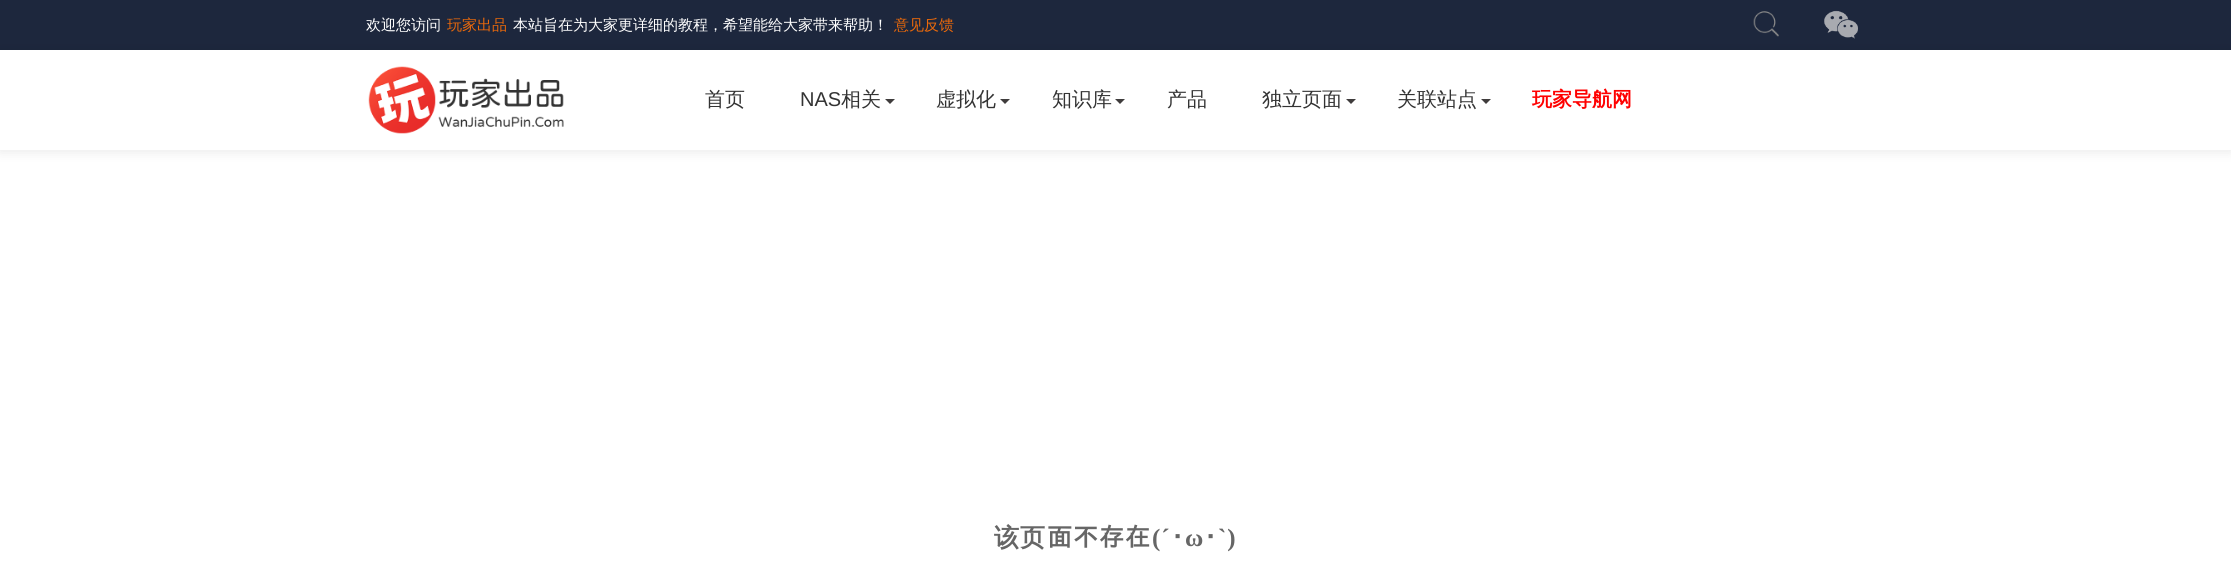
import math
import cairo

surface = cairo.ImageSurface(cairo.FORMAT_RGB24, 2231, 577)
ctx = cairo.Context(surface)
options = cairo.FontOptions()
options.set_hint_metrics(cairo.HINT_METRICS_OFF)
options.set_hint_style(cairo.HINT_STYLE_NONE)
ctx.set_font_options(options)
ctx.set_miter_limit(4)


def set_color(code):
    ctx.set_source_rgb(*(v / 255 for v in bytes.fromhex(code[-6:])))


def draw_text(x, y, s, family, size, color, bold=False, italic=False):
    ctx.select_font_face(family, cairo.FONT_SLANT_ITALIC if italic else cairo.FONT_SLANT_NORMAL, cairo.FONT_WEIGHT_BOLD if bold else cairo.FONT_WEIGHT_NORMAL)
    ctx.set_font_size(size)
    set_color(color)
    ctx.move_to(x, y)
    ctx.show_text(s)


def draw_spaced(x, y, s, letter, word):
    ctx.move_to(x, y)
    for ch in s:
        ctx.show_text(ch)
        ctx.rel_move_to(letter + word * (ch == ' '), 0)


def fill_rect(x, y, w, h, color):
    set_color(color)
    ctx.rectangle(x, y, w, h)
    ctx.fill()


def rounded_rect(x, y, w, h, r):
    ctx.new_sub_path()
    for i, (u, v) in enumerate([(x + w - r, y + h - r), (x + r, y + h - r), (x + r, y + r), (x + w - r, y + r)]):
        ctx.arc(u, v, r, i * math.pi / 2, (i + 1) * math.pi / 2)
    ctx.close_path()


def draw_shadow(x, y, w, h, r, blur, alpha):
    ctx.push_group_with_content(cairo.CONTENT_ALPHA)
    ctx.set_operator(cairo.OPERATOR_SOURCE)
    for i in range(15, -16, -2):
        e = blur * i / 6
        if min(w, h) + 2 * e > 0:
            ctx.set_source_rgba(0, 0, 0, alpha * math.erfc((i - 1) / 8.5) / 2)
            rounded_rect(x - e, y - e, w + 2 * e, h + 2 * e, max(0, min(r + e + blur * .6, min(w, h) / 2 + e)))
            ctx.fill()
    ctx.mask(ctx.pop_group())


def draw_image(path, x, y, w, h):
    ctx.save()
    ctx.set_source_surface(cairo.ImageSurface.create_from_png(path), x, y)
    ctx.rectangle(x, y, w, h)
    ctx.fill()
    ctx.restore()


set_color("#ffffff")
ctx.paint()
fill_rect(0, 0, 2231, 50, "#1d273d")
draw_text(366, 30, "欢迎您访问", "WenQuanYi Zen Hei Medium", 15, "#ffffff")
ctx.save()
ctx.set_fill_rule(cairo.FILL_RULE_EVEN_ODD)
ctx.new_path()
ctx.move_to(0, 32)
ctx.line_to(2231, 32)
ctx.line_to(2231, 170)
ctx.line_to(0, 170)
ctx.close_path()
ctx.move_to(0, 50)
ctx.line_to(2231, 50)
ctx.line_to(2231, 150)
ctx.line_to(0, 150)
ctx.close_path()
ctx.clip()
set_color("#000000")
draw_shadow(0, 51, 2231, 100, 0, 6, 0.1)
ctx.restore()
draw_text(447, 30, "玩家出品", "WenQuanYi Zen Hei Medium", 15, "#eb690a")
draw_text(513, 30, "本站旨在为大家更详细的教程，希望能给大家带来帮助！", "WenQuanYi Zen Hei Medium", 15, "#ffffff")
draw_text(894, 30, "意见反馈", "WenQuanYi Zen Hei Medium", 15, "#eb690a")
draw_image("assets/img1.png", 1753, 11, 26, 26)
draw_image("assets/img2.png", 1824, 10, 34, 29)
draw_image("assets/img3.png", 368, 66, 196, 68)
draw_text(705, 106, "首页", "WenQuanYi Zen Hei Medium", 20, "#333333")
draw_text(800, 106, "NAS", "Liberation Sans", 20, "#333333")
draw_text(841, 106, "相关", "WenQuanYi Zen Hei Medium", 20, "#333333")
set_color("#3f3c3c")
ctx.new_path()
ctx.move_to(885, 99)
ctx.line_to(895, 99)
ctx.line_to(890, 104)
ctx.close_path()
ctx.fill()
draw_text(936, 106, "虚拟化", "WenQuanYi Zen Hei Medium", 20, "#333333")
set_color("#3f3c3c")
ctx.new_path()
ctx.move_to(1000, 99)
ctx.line_to(1010, 99)
ctx.line_to(1005, 104)
ctx.close_path()
ctx.fill()
draw_text(1052, 106, "知识库", "WenQuanYi Zen Hei Medium", 20, "#333333")
set_color("#3f3c3c")
ctx.new_path()
ctx.move_to(1115, 99)
ctx.line_to(1125, 99)
ctx.line_to(1120, 104)
ctx.close_path()
ctx.fill()
draw_text(1167, 106, "产品", "WenQuanYi Zen Hei Medium", 20, "#333333")
draw_text(1262, 106, "独立页面", "WenQuanYi Zen Hei Medium", 20, "#333333")
set_color("#3f3c3c")
ctx.new_path()
ctx.move_to(1346, 99)
ctx.line_to(1356, 99)
ctx.line_to(1351, 104)
ctx.close_path()
ctx.fill()
draw_text(1397, 106, "关联站点", "WenQuanYi Zen Hei Medium", 20, "#333333")
set_color("#3f3c3c")
ctx.new_path()
ctx.move_to(1481, 99)
ctx.line_to(1491, 99)
ctx.line_to(1486, 104)
ctx.close_path()
ctx.fill()
draw_text(1532, 106, "玩家导航网", "WenQuanYi Zen Hei", 20, "#ff0000", bold=True)
ctx.set_font_size(25)
set_color("#666666")
draw_spaced(994, 546, "该页", 1, 0)
ctx.select_font_face("IPAGothic", cairo.FONT_SLANT_NORMAL, cairo.FONT_WEIGHT_BOLD)
draw_spaced(1047, 546, "面不存在", 1, 0)
ctx.select_font_face("Liberation Serif", cairo.FONT_SLANT_NORMAL, cairo.FONT_WEIGHT_BOLD)
draw_spaced(1152, 546, "(´", 1, 0)
ctx.select_font_face("IPAGothic", cairo.FONT_SLANT_NORMAL, cairo.FONT_WEIGHT_BOLD)
draw_spaced(1171, 546, "･", 1, 0)
ctx.select_font_face("Liberation Serif", cairo.FONT_SLANT_NORMAL, cairo.FONT_WEIGHT_BOLD)
draw_spaced(1185, 546, "ω", 1, 0)
ctx.select_font_face("IPAGothic", cairo.FONT_SLANT_NORMAL, cairo.FONT_WEIGHT_BOLD)
draw_spaced(1204, 546, "･", 1, 0)
ctx.select_font_face("Liberation Serif", cairo.FONT_SLANT_NORMAL, cairo.FONT_WEIGHT_BOLD)
draw_spaced(1218, 546, "`)", 1, 0)
surface.write_to_png("output.png")
